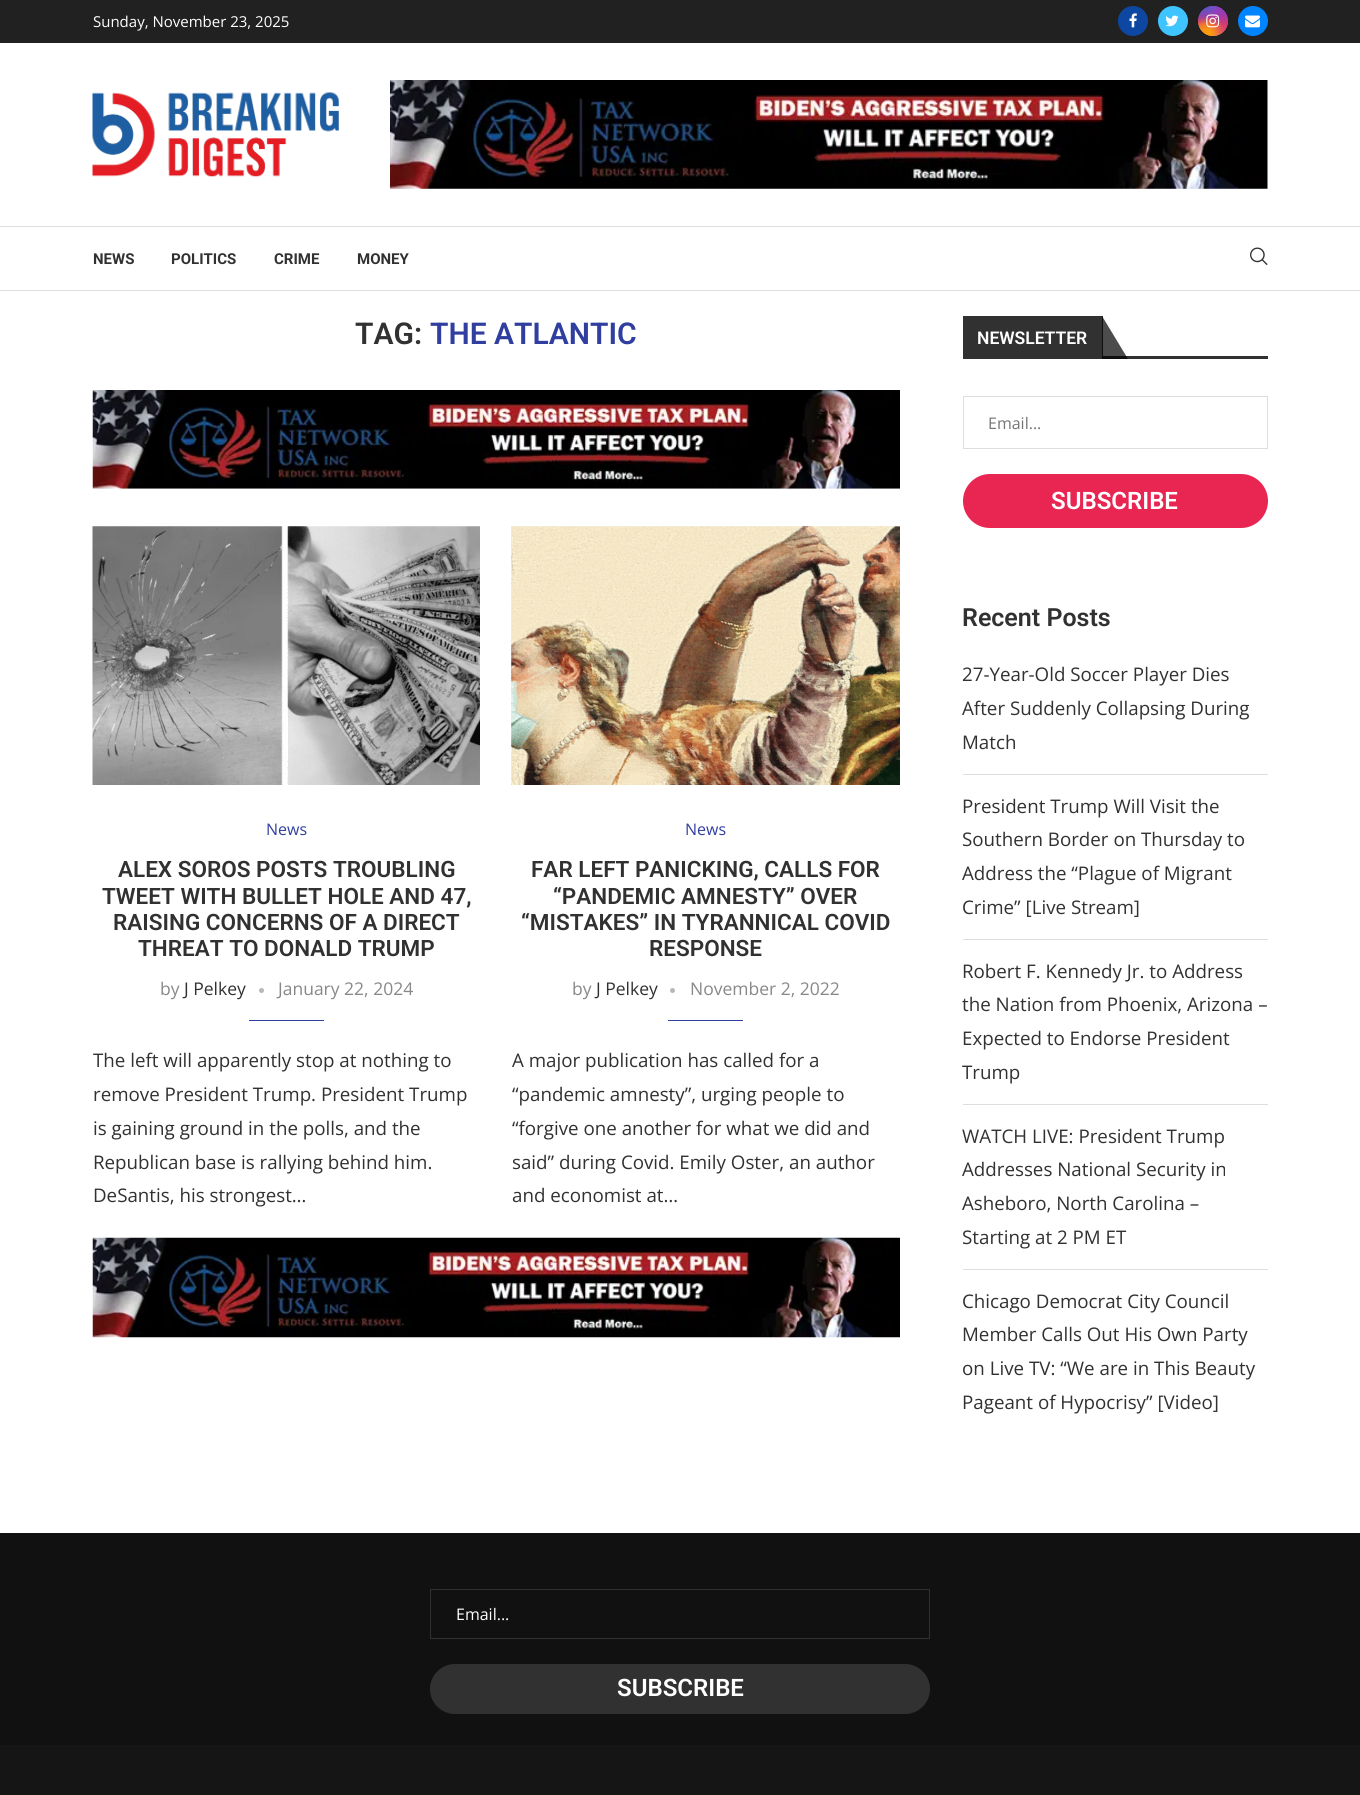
import math
import cairo

surface = cairo.ImageSurface(cairo.FORMAT_RGB24, 1360, 1795)
ctx = cairo.Context(surface)
options = cairo.FontOptions()
options.set_hint_metrics(cairo.HINT_METRICS_OFF)
options.set_hint_style(cairo.HINT_STYLE_NONE)
ctx.set_font_options(options)
ctx.set_miter_limit(4)


def set_color(code):
    ctx.set_source_rgb(*(v / 255 for v in bytes.fromhex(code[-6:])))


def draw_text(x, y, s, family, size, color, bold=False, italic=False):
    ctx.select_font_face(family, cairo.FONT_SLANT_ITALIC if italic else cairo.FONT_SLANT_NORMAL, cairo.FONT_WEIGHT_BOLD if bold else cairo.FONT_WEIGHT_NORMAL)
    ctx.set_font_size(size)
    set_color(color)
    ctx.move_to(x, y)
    ctx.show_text(s)


def fill_rect(x, y, w, h, color):
    set_color(color)
    ctx.rectangle(x, y, w, h)
    ctx.fill()


def rounded_rect(x, y, w, h, r):
    ctx.new_sub_path()
    for i, (u, v) in enumerate([(x + w - r, y + h - r), (x + r, y + h - r), (x + r, y + r), (x + w - r, y + r)]):
        ctx.arc(u, v, r, i * math.pi / 2, (i + 1) * math.pi / 2)
    ctx.close_path()


def draw_image(path, x, y, w, h):
    ctx.save()
    ctx.set_source_surface(cairo.ImageSurface.create_from_png(path), x, y)
    ctx.rectangle(x, y, w, h)
    ctx.fill()
    ctx.restore()


set_color("#ffffff")
ctx.paint()
fill_rect(0, 0, 1360, 43, "#212121")
draw_text(93, 27, "Sunday, November 23, 2025", "Open Sans", 15, "#ffffff")
set_color("#0d47a1")
ctx.new_path()
ctx.arc(1133, 21, 15, 0, 2 * math.pi)
ctx.fill()
draw_image("assets/img1.png", 1129, 13, 8, 15)
set_color("#40c4ff")
ctx.arc(1173, 21, 15, 0, 2 * math.pi)
ctx.fill()
draw_image("assets/img2.png", 1165, 15, 14, 12)
gradient = cairo.LinearGradient(1213, 6.2, 1213, 36)
gradient.add_color_stop_rgba(0, 0.396, 0.349, 0.792, 1)
gradient.add_color_stop_rgba(0.3, 0.737, 0.192, 0.561, 1)
gradient.add_color_stop_rgba(0.5, 0.89, 0.247, 0.373, 1)
gradient.add_color_stop_rgba(0.7, 0.969, 0.463, 0.22, 1)
gradient.add_color_stop_rgba(1, 0.996, 0.776, 0.427, 1)
ctx.set_source(gradient)
ctx.arc(1213, 21, 15, 0, 2 * math.pi)
ctx.fill()
gradient = cairo.RadialGradient(1228, 36, 0, 1228, 36, 42)
gradient.add_color_stop_rgba(0, 0.831, 0.192, 0.471, 1)
gradient.add_color_stop_rgba(1, 0.831, 0.192, 0.471, 0)
ctx.set_source(gradient)
ctx.arc(1213, 21, 15, 0, 2 * math.pi)
ctx.fill()
gradient = cairo.RadialGradient(0, 0, 0, 0, 0, 1)
gradient.set_matrix(cairo.Matrix(1 / 25, 0, 0, 1 / 51, -1 * 1216 / 25, -1 * 0.2 / 51))
gradient.add_color_stop_rgba(0, 0.561, 0.267, 0.78, 1)
gradient.add_color_stop_rgba(0.5, 0.561, 0.267, 0.78, 0)
ctx.set_source(gradient)
ctx.arc(1213, 21, 15, 0, 2 * math.pi)
ctx.fill()
gradient = cairo.RadialGradient(1228, 6.2, 0, 1228, 6.2, 42)
gradient.add_color_stop_rgba(0, 0.537, 0.239, 0.761, 1)
gradient.add_color_stop_rgba(0.5, 0.537, 0.239, 0.761, 0)
ctx.set_source(gradient)
ctx.arc(1213, 21, 15, 0, 2 * math.pi)
ctx.fill()
gradient = cairo.RadialGradient(0, 0, 0, 0, 0, 1)
gradient.set_matrix(cairo.Matrix(1 / 34, 0, 0, 1 / 64, -1 * 1204 / 34, -1 * -9 / 64))
gradient.add_color_stop_rgba(0, 0.322, 0.345, 0.812, 1)
gradient.add_color_stop_rgba(0.5, 0.322, 0.345, 0.812, 0)
ctx.set_source(gradient)
ctx.arc(1213, 21, 15, 0, 2 * math.pi)
ctx.fill()
gradient = cairo.RadialGradient(0, 0, 0, 0, 0, 1)
gradient.set_matrix(cairo.Matrix(1 / 42, 0, 0, 1 / 53, -1 * 1198 / 42, -1 * -1.2 / 53))
gradient.add_color_stop_rgba(0, 0.322, 0.345, 0.812, 1)
gradient.add_color_stop_rgba(0.5, 0.322, 0.345, 0.812, 0)
ctx.set_source(gradient)
ctx.arc(1213, 21, 15, 0, 2 * math.pi)
ctx.fill()
gradient = cairo.RadialGradient(1198, 48, 0, 1198, 48, 52)
gradient.add_color_stop_rgba(0, 0.937, 0.631, 0.11, 1)
gradient.add_color_stop_rgba(0.5, 0.937, 0.631, 0.11, 0)
ctx.set_source(gradient)
ctx.arc(1213, 21, 15, 0, 2 * math.pi)
ctx.fill()
gradient = cairo.RadialGradient(1208, 33, 0, 1208, 33, 33)
gradient.add_color_stop_rgba(0, 1, 0.631, 0, 1)
gradient.add_color_stop_rgba(0.5, 1, 0.631, 0, 0)
ctx.set_source(gradient)
ctx.arc(1213, 21, 15, 0, 2 * math.pi)
ctx.fill()
draw_image("assets/img3.png", 1206, 14, 14, 14)
set_color("#0084ff")
ctx.arc(1253, 21, 15, 0, 2 * math.pi)
ctx.fill()
draw_image("assets/img4.png", 1245, 15, 15, 13)
draw_image("assets/img5.png", 92, 92, 247, 85)
draw_image("assets/img6.png", 390, 80, 878, 109)
fill_rect(0, 226, 1360, 1, "#dedede")
fill_rect(0, 290, 1360, 1, "#dedede")
draw_text(93, 264, "NEWS", "Roboto", 15, "#313131", bold=True)
draw_text(171, 264, "POLITICS", "Roboto", 15, "#313131", bold=True)
draw_text(274, 264, "CRIME", "Roboto", 15, "#313131", bold=True)
draw_text(357, 264, "MONEY", "Roboto", 15, "#313131", bold=True)
draw_image("assets/img7.png", 1250, 247, 18, 18)
draw_text(355, 344, "TAG:", "Roboto SemiBold", 30, "#313131")
draw_text(430, 344, "THE ATLANTIC", "Roboto SemiBold", 30, "#303f9f")
draw_image("assets/img8.png", 92, 390, 808, 99)
draw_image("assets/img9.png", 92, 526, 388, 259)
draw_text(266, 835, "News", "Open Sans", 16, "#303f9f")
draw_text(118, 877, "ALEX SOROS POSTS TROUBLING", "Roboto SemiBold", 22.5, "#313131")
draw_text(102, 904, "TWEET WITH BULLET HOLE AND 47,", "Roboto SemiBold", 22.5, "#313131")
draw_text(113, 930, "RAISING CONCERNS OF A DIRECT", "Roboto SemiBold", 22.5, "#313131")
draw_text(138, 956, "THREAT TO DONALD TRUMP", "Roboto SemiBold", 22.5, "#313131")
draw_text(160, 995, "by", "Open Sans", 17.5, "#888888")
draw_text(184, 995, "J Pelkey", "Open Sans", 17.5, "#313131")
set_color("#b8b8b8")
ctx.new_path()
ctx.arc(261.5, 990.5, 2.5, 0, 2 * math.pi)
ctx.fill()
draw_text(278, 995, "January 22, 2024", "Open Sans", 17.5, "#888888")
fill_rect(249, 1020, 75, 1, "#303f9f")
draw_text(93, 1067, "The left will apparently stop at nothing to", "Open Sans", 18.75, "#313131")
draw_text(93, 1101, "remove President Trump. President Trump", "Open Sans", 18.75, "#313131")
draw_text(93, 1135, "is gaining ground in the polls, and the", "Open Sans", 18.75, "#313131")
draw_text(93, 1169, "Republican base is rallying behind him.", "Open Sans", 18.75, "#313131")
draw_text(93, 1202, "DeSantis, his strongest…", "Open Sans", 18.75, "#313131")
fill_rect(511, 526, 389, 259, "#f5f5f5")
draw_image("assets/img10.png", 511, 526, 389, 259)
draw_text(685, 835, "News", "Open Sans", 16, "#303f9f")
draw_text(531, 877, "FAR LEFT PANICKING, CALLS FOR", "Roboto SemiBold", 22.5, "#313131")
draw_text(553, 904, "“PANDEMIC AMNESTY” OVER", "Roboto SemiBold", 22.5, "#313131")
draw_text(521, 930, "“MISTAKES” IN TYRANNICAL COVID", "Roboto SemiBold", 22.5, "#313131")
draw_text(649, 956, "RESPONSE", "Roboto SemiBold", 22.5, "#313131")
draw_text(572, 995, "by", "Open Sans", 17.5, "#888888")
draw_text(596, 995, "J Pelkey", "Open Sans", 17.5, "#313131")
set_color("#b8b8b8")
ctx.new_path()
ctx.arc(672.5, 990.5, 2.5, 0, 2 * math.pi)
ctx.fill()
draw_text(690, 995, "November 2, 2022", "Open Sans", 17.5, "#888888")
fill_rect(668, 1020, 75, 1, "#303f9f")
draw_text(512, 1067, "A major publication has called for a", "Open Sans", 18.75, "#313131")
draw_text(512, 1101, "“pandemic amnesty”, urging people to", "Open Sans", 18.75, "#313131")
draw_text(512, 1135, "“forgive one another for what we did and", "Open Sans", 18.75, "#313131")
draw_text(512, 1169, "said” during Covid. Emily Oster, an author", "Open Sans", 18.75, "#313131")
draw_text(512, 1202, "and economist at…", "Open Sans", 18.75, "#313131")
draw_image("assets/img11.png", 92, 1237, 808, 101)
fill_rect(1103, 356, 165, 3, "#313131")
fill_rect(963, 316, 140, 43, "#313131")
draw_text(977, 344, "NEWSLETTER", "Roboto SemiBold", 17.5, "#ffffff")
ctx.set_source_rgba(0, 0, 0, 0.7)
ctx.new_path()
ctx.move_to(1128, 359)
ctx.line_to(1102, 359)
ctx.line_to(1102, 316)
ctx.close_path()
ctx.fill()
ctx.rectangle(963.5, 396.5, 304, 52)
set_color("#dedede")
ctx.set_line_width(1)
ctx.stroke()
draw_text(988, 429, "Email...", "Open Sans", 16, "#757575")
set_color("#e92552")
rounded_rect(963, 474, 305, 54, 27)
ctx.fill()
draw_text(1051, 509, "SUBSCRIBE", "Roboto SemiBold", 24, "#ffffff")
draw_text(962, 626, "Recent Posts", "Roboto SemiBold", 25, "#313131")
fill_rect(963, 774, 305, 1, "#dedede")
draw_text(962, 681, "27-Year-Old Soccer Player Dies", "Open Sans", 18.75, "#313131")
draw_text(962, 715, "After Suddenly Collapsing During", "Open Sans", 18.75, "#313131")
draw_text(962, 749, "Match", "Open Sans", 18.75, "#313131")
fill_rect(963, 939, 305, 1, "#dedede")
draw_text(962, 813, "President Trump Will Visit the", "Open Sans", 18.75, "#313131")
draw_text(962, 846, "Southern Border on Thursday to", "Open Sans", 18.75, "#313131")
draw_text(962, 880, "Address the “Plague of Migrant", "Open Sans", 18.75, "#313131")
draw_text(962, 914, "Crime” [Live Stream]", "Open Sans", 18.75, "#313131")
fill_rect(963, 1104, 305, 1, "#dedede")
draw_text(962, 978, "Robert F. Kennedy Jr. to Address", "Open Sans", 18.75, "#313131")
draw_text(962, 1011, "the Nation from Phoenix, Arizona –", "Open Sans", 18.75, "#313131")
draw_text(962, 1045, "Expected to Endorse President", "Open Sans", 18.75, "#313131")
draw_text(962, 1079, "Trump", "Open Sans", 18.75, "#313131")
fill_rect(963, 1269, 305, 1, "#dedede")
draw_text(962, 1143, "WATCH LIVE: President Trump", "Open Sans", 18.75, "#313131")
draw_text(962, 1176, "Addresses National Security in", "Open Sans", 18.75, "#313131")
draw_text(962, 1210, "Asheboro, North Carolina –", "Open Sans", 18.75, "#313131")
draw_text(962, 1244, "Starting at 2 PM ET", "Open Sans", 18.75, "#313131")
draw_text(962, 1308, "Chicago Democrat City Council", "Open Sans", 18.75, "#313131")
draw_text(962, 1341, "Member Calls Out His Own Party", "Open Sans", 18.75, "#313131")
draw_text(962, 1375, "on Live TV: “We are in This Beauty", "Open Sans", 18.75, "#313131")
draw_text(962, 1409, "Pageant of Hypocrisy” [Video]", "Open Sans", 18.75, "#313131")
fill_rect(0, 1533, 1360, 212, "#111111")
ctx.rectangle(430.5, 1589.5, 499, 49)
set_color("#313131")
ctx.stroke()
draw_text(456, 1620, "Email...", "Open Sans", 16, "#ffffff")
set_color("#313131")
rounded_rect(430, 1664, 500, 50, 25)
ctx.fill()
draw_text(617, 1696, "SUBSCRIBE", "Roboto SemiBold", 24, "#ffffff")
fill_rect(0, 1745, 1360, 50, "#151515")
surface.write_to_png("output.png")
